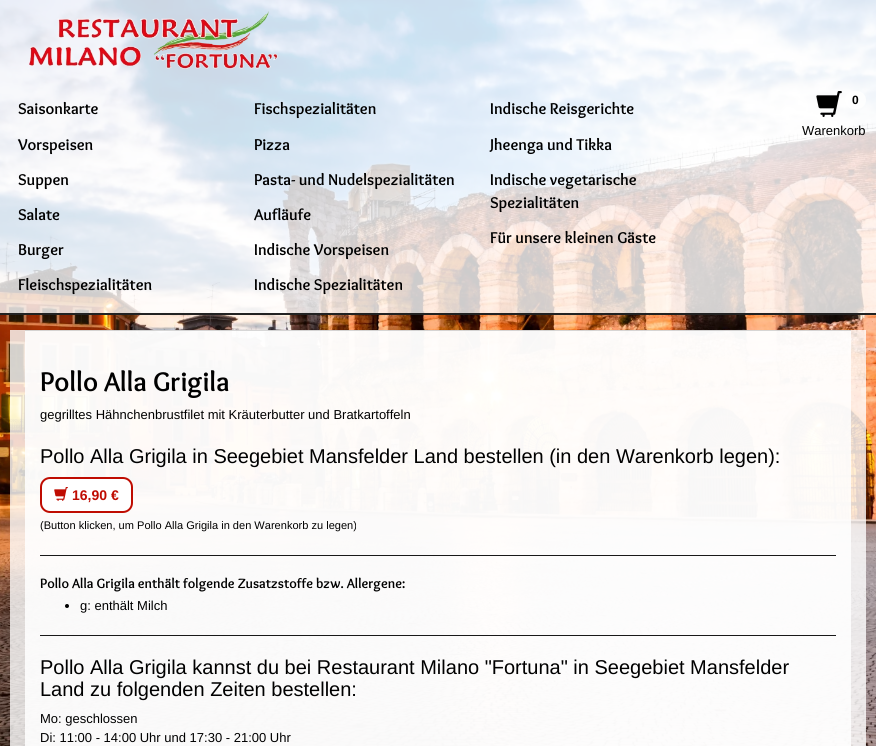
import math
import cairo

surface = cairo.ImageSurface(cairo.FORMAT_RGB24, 876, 746)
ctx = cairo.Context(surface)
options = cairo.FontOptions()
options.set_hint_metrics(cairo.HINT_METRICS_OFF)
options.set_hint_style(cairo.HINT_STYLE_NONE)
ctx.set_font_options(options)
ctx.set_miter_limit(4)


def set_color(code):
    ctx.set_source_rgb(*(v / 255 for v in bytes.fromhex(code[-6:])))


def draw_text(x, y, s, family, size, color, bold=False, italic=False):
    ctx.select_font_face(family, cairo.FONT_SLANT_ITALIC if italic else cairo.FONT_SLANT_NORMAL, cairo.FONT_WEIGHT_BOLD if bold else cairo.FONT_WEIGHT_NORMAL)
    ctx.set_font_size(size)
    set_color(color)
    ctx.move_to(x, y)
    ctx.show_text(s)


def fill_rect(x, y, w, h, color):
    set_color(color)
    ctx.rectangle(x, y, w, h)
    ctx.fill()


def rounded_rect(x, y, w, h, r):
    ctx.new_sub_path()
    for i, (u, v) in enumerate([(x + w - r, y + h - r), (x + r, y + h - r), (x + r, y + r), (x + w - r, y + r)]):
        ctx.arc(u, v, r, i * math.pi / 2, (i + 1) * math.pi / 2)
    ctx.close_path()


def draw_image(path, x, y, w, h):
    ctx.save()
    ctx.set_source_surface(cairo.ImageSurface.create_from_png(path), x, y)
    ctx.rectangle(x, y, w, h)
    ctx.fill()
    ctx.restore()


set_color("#ffffff")
ctx.paint()
draw_image("assets/img1.png", 0, 0, 876, 746)
ctx.set_source_rgba(1, 1, 1, 0.8)
ctx.rectangle(0, 0, 876, 76)
ctx.fill()
draw_image("assets/img2.png", 28, 11, 250, 58)
ctx.rectangle(0, 76, 876, 237)
ctx.fill()
fill_rect(0, 313, 876, 2, "#222222")
draw_text(18, 114, "Saisonkarte", "Overlock", 16.25, "#000000", bold=True)
draw_text(18, 150, "Vorspeisen", "Overlock", 16.25, "#000000", bold=True)
draw_text(18, 185, "Suppen", "Overlock", 16.25, "#000000", bold=True)
draw_text(18, 220, "Salate", "Overlock", 16.25, "#000000", bold=True)
draw_text(18, 255, "Burger", "Overlock", 16.25, "#000000", bold=True)
draw_text(18, 290, "Fleischspezialitäten", "Overlock", 16.25, "#000000", bold=True)
draw_text(254, 114, "Fischspezialitäten", "Overlock", 16.25, "#000000", bold=True)
draw_text(254, 150, "Pizza", "Overlock", 16.25, "#000000", bold=True)
draw_text(254, 185, "Pasta- und Nudelspezialitäten", "Overlock", 16.25, "#000000", bold=True)
draw_text(254, 220, "Aufläufe", "Overlock", 16.25, "#000000", bold=True)
draw_text(254, 255, "Indische Vorspeisen", "Overlock", 16.25, "#000000", bold=True)
draw_text(254, 290, "Indische Spezialitäten", "Overlock", 16.25, "#000000", bold=True)
draw_text(490, 114, "Indische Reisgerichte", "Overlock", 16.25, "#000000", bold=True)
draw_text(490, 150, "Jheenga und Tikka", "Overlock", 16.25, "#000000", bold=True)
draw_text(490, 185, "Indische vegetarische", "Overlock", 16.25, "#000000", bold=True)
draw_text(490, 208, "Spezialitäten", "Overlock", 16.25, "#000000", bold=True)
draw_text(490, 243, "Für unsere kleinen Gäste", "Overlock", 16.25, "#000000", bold=True)
draw_image("assets/img3.png", 816, 91, 26, 26)
ctx.set_source_rgba(1, 1, 1, 0.8)
rounded_rect(845, 91, 21, 18, 9)
ctx.fill()
draw_text(852, 104, "0", "Liberation Sans", 12, "#000000", bold=True)
draw_text(802, 135, "Warenkorb", "Liberation Sans", 13, "#000000")
ctx.set_source_rgba(1, 1, 1, 0.8)
ctx.rectangle(10, 330, 856, 416)
ctx.fill()
ctx.set_source_rgba(1, 1, 1, 0.85)
ctx.rectangle(25, 330, 826, 416)
ctx.fill()
ctx.set_source_rgba(0.478, 0.478, 0.478, 0.3)
ctx.rectangle(25, 330, 826, 1)
ctx.fill()
draw_text(40, 391, "Pollo Alla Grigila", "Overlock", 28, "#000000", bold=True)
draw_text(40, 419, "gegrilltes Hähnchenbrustfilet mit Kräuterbutter und Bratkartoffeln", "Liberation Sans", 13, "#000000")
draw_text(40, 463, "Pollo Alla Grigila in Seegebiet Mansfelder Land bestellen (in den Warenkorb legen):", "Liberation Sans", 20, "#000000")
set_color("#ffffff")
rounded_rect(41, 478, 91, 34, 9)
ctx.fill_preserve()
set_color("#bf0c01")
ctx.stroke()
draw_image("assets/img4.png", 54, 487, 14, 14)
draw_text(72, 500, "16,90 €", "Liberation Sans", 14, "#bf0c01", bold=True)
draw_text(40, 529, "(Button klicken, um Pollo Alla Grigila in den Warenkorb zu legen)", "Liberation Sans", 11.05, "#000000")
fill_rect(40, 555, 796, 1, "#191919")
draw_text(40, 588, "Pollo Alla Grigila enthält folgende Zusatzstoffe bzw. Allergene:", "Overlock", 14, "#000000", bold=True)
ctx.new_path()
ctx.arc(67, 606, 2, 0, 2 * math.pi)
ctx.fill()
draw_text(80, 610, "g: enthält Milch", "Liberation Sans", 13, "#000000")
fill_rect(40, 635, 796, 1, "#191919")
draw_text(40, 674, "Pollo Alla Grigila kannst du bei Restaurant Milano \"Fortuna\" in Seegebiet Mansfelder", "Liberation Sans", 20, "#000000")
draw_text(40, 696, "Land zu folgenden Zeiten bestellen:", "Liberation Sans", 20, "#000000")
draw_text(40, 723, "Mo: geschlossen", "Liberation Sans", 13, "#000000")
draw_text(40, 742, "Di: 11:00 - 14:00 Uhr und 17:30 - 21:00 Uhr", "Liberation Sans", 13, "#000000")
surface.write_to_png("output.png")
